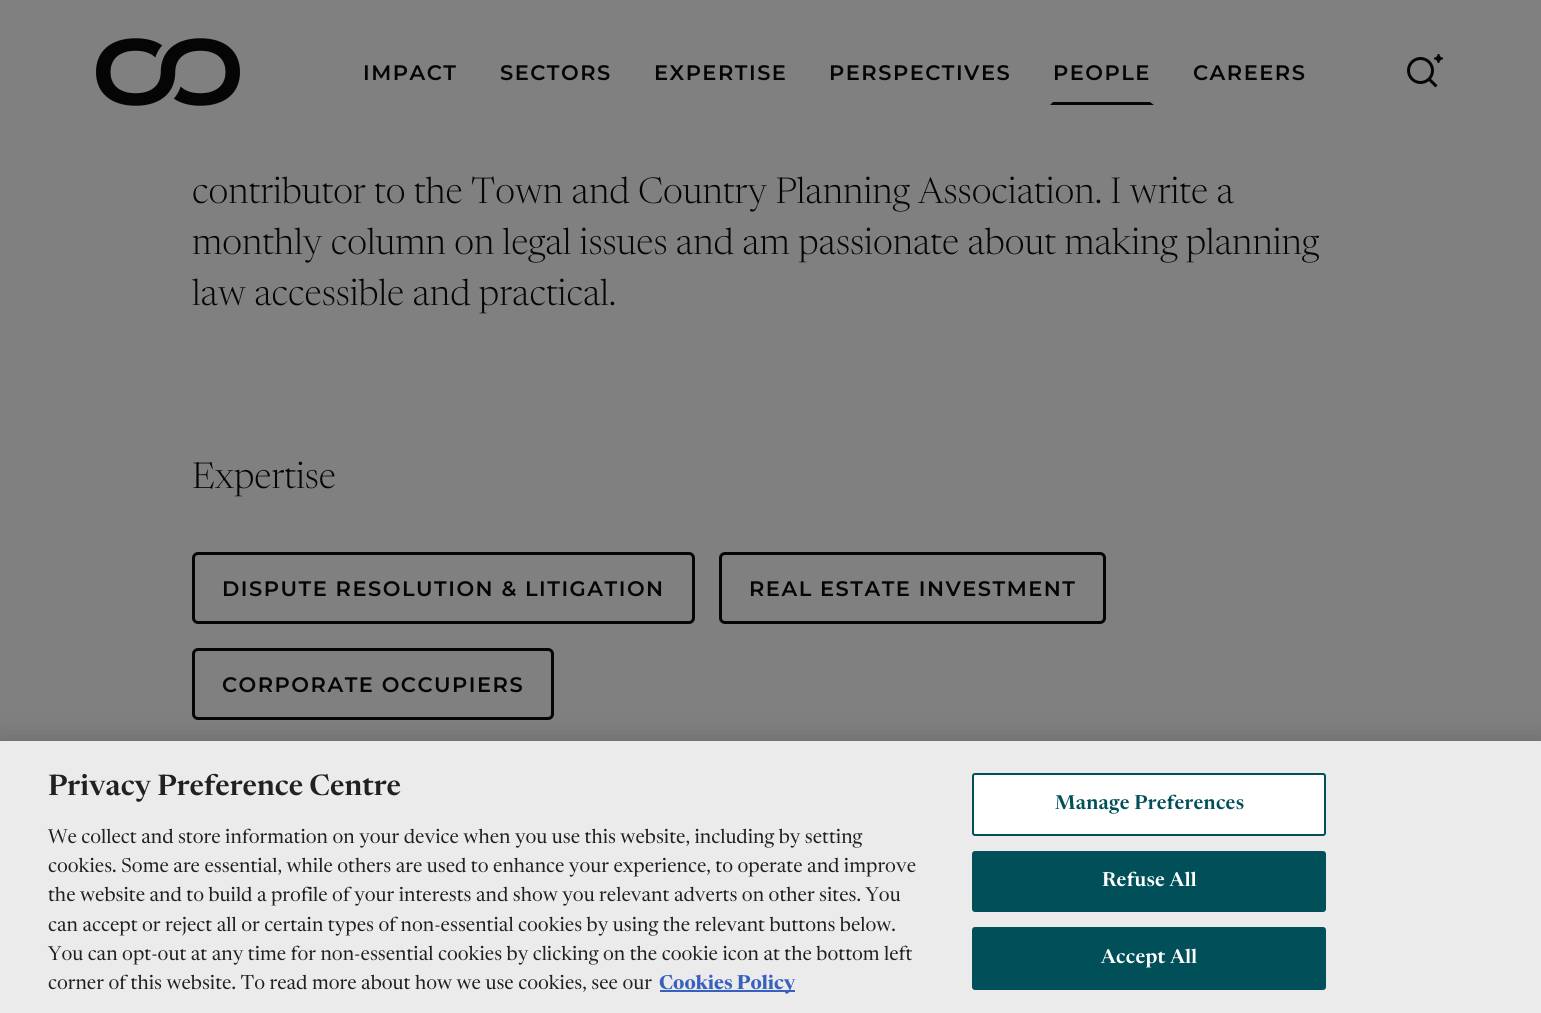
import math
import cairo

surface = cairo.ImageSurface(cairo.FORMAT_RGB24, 1541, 1013)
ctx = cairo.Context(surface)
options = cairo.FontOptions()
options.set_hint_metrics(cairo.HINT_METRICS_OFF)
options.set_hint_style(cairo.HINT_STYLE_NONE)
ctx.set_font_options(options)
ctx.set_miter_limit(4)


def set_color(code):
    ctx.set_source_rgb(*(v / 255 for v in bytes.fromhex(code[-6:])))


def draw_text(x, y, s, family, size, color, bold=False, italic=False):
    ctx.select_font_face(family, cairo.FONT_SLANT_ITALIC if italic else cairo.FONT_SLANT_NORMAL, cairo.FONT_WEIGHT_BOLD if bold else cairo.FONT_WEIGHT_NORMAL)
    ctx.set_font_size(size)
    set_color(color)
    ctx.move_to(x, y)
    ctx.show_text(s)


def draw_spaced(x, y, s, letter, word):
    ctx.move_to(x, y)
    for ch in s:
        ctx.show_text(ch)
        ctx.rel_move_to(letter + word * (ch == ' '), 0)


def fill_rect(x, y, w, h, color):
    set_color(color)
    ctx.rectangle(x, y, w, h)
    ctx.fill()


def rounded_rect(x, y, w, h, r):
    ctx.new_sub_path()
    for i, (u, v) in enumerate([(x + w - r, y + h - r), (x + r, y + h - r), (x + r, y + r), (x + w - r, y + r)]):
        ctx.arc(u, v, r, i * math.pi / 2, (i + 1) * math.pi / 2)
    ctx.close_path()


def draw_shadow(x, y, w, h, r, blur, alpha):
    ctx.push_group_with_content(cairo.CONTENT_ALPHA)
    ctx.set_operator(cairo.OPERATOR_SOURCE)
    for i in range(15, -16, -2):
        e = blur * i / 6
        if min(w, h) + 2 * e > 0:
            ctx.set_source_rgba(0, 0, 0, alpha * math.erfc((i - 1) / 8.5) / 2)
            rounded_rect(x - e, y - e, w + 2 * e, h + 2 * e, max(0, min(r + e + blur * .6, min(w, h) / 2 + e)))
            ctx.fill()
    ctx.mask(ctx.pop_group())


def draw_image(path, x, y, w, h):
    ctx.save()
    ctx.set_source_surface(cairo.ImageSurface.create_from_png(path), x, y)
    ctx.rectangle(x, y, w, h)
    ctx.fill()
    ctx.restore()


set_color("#808080")
ctx.paint()
draw_image("assets/img1.png", 96, 38, 144, 68)
ctx.select_font_face("Montserrat SemiBold")
ctx.set_font_size(21)
set_color("#050505")
draw_spaced(363, 80, "IMPACT", 1.5, 0)
draw_spaced(500, 80, "SECTORS", 1.5, 0)
draw_spaced(654, 80, "EXPERTISE", 1.5, 0)
draw_spaced(829, 80, "PERSPECTIVES", 1.5, 0)
ctx.new_path()
ctx.move_to(1154, 105)
ctx.line_to(1050, 105)
ctx.line_to(1053, 102)
ctx.line_to(1150, 102)
ctx.close_path()
ctx.fill()
draw_spaced(1053, 80, "PEOPLE", 1.5, 0)
draw_spaced(1193, 80, "CAREERS", 1.5, 0)
draw_image("assets/img2.png", 1407, 54, 36, 34)
draw_text(192, 203, "contributor to the Town and Country Planning Association. I write a", "Newsreader Light", 36, "#050505")
draw_text(192, 254, "monthly column on legal issues and am passionate about making planning", "Newsreader Light", 36, "#050505")
draw_text(192, 305, "law accessible and practical.", "Newsreader Light", 36, "#050505")
draw_text(192, 488, "Expertise", "Newsreader Light", 36, "#050505")
rounded_rect(193.5, 553.5, 500, 69, 4.5)
ctx.set_line_width(3)
ctx.stroke()
ctx.select_font_face("Montserrat SemiBold")
ctx.set_font_size(21)
draw_spaced(222, 596, "DISPUTE RESOLUTION & LITIGATION", 1.5, 0)
rounded_rect(720.5, 553.5, 384, 69, 4.5)
ctx.stroke()
draw_spaced(749, 596, "REAL ESTATE INVESTMENT", 1.5, 0)
rounded_rect(193.5, 649.5, 359, 69, 4.5)
ctx.stroke()
draw_spaced(222, 692, "CORPORATE OCCUPIERS", 1.5, 0)
set_color("#000000")
draw_shadow(0, 741, 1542, 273, 0, 13.5, 0.2)
fill_rect(0, 741, 1541, 272, "#ebebeb")
draw_text(48, 795, "Privacy Preference Centre", "Newsreader SemiBold", 28.75, "#212121")
draw_text(48, 843, "We collect and store information on your device when you use this website, including by setting", "Newsreader", 19.5, "#212121")
draw_text(48, 872, "cookies. Some are essential, while others are used to enhance your experience, to operate and improve", "Newsreader", 19.5, "#212121")
draw_text(48, 901, "the website and to build a profile of your interests and show you relevant adverts on other sites. You", "Newsreader", 19.5, "#212121")
draw_text(48, 931, "can accept or reject all or certain types of non-essential cookies by using the relevant buttons below.", "Newsreader", 19.5, "#212121")
draw_text(48, 960, "You can opt-out at any time for non-essential cookies by clicking on the cookie icon at the bottom left", "Newsreader", 19.5, "#212121")
draw_text(48, 989, "corner of this website. To read more about how we use cookies, see our", "Newsreader", 19.5, "#212121")
fill_rect(660, 990, 135, 2, "#3860be")
draw_text(659, 989, "Cookies Policy", "Newsreader", 19.5, "#3860be", bold=True)
set_color("#ffffff")
rounded_rect(973, 774, 352, 61, 2)
ctx.fill_preserve()
set_color("#004f59")
ctx.set_line_width(2)
ctx.stroke()
ctx.select_font_face("Newsreader SemiBold")
draw_spaced(1055, 809, "Manage Preferences", 0.25, 0)
rounded_rect(973, 852, 352, 59, 2)
ctx.fill_preserve()
ctx.stroke()
set_color("#ffffff")
draw_spaced(1102, 886, "Refuse All", 0.25, 0)
set_color("#004f59")
rounded_rect(973, 928, 352, 61, 2)
ctx.fill_preserve()
ctx.stroke()
set_color("#ffffff")
draw_spaced(1101, 963, "Accept All", 0.25, 0)
surface.write_to_png("output.png")
